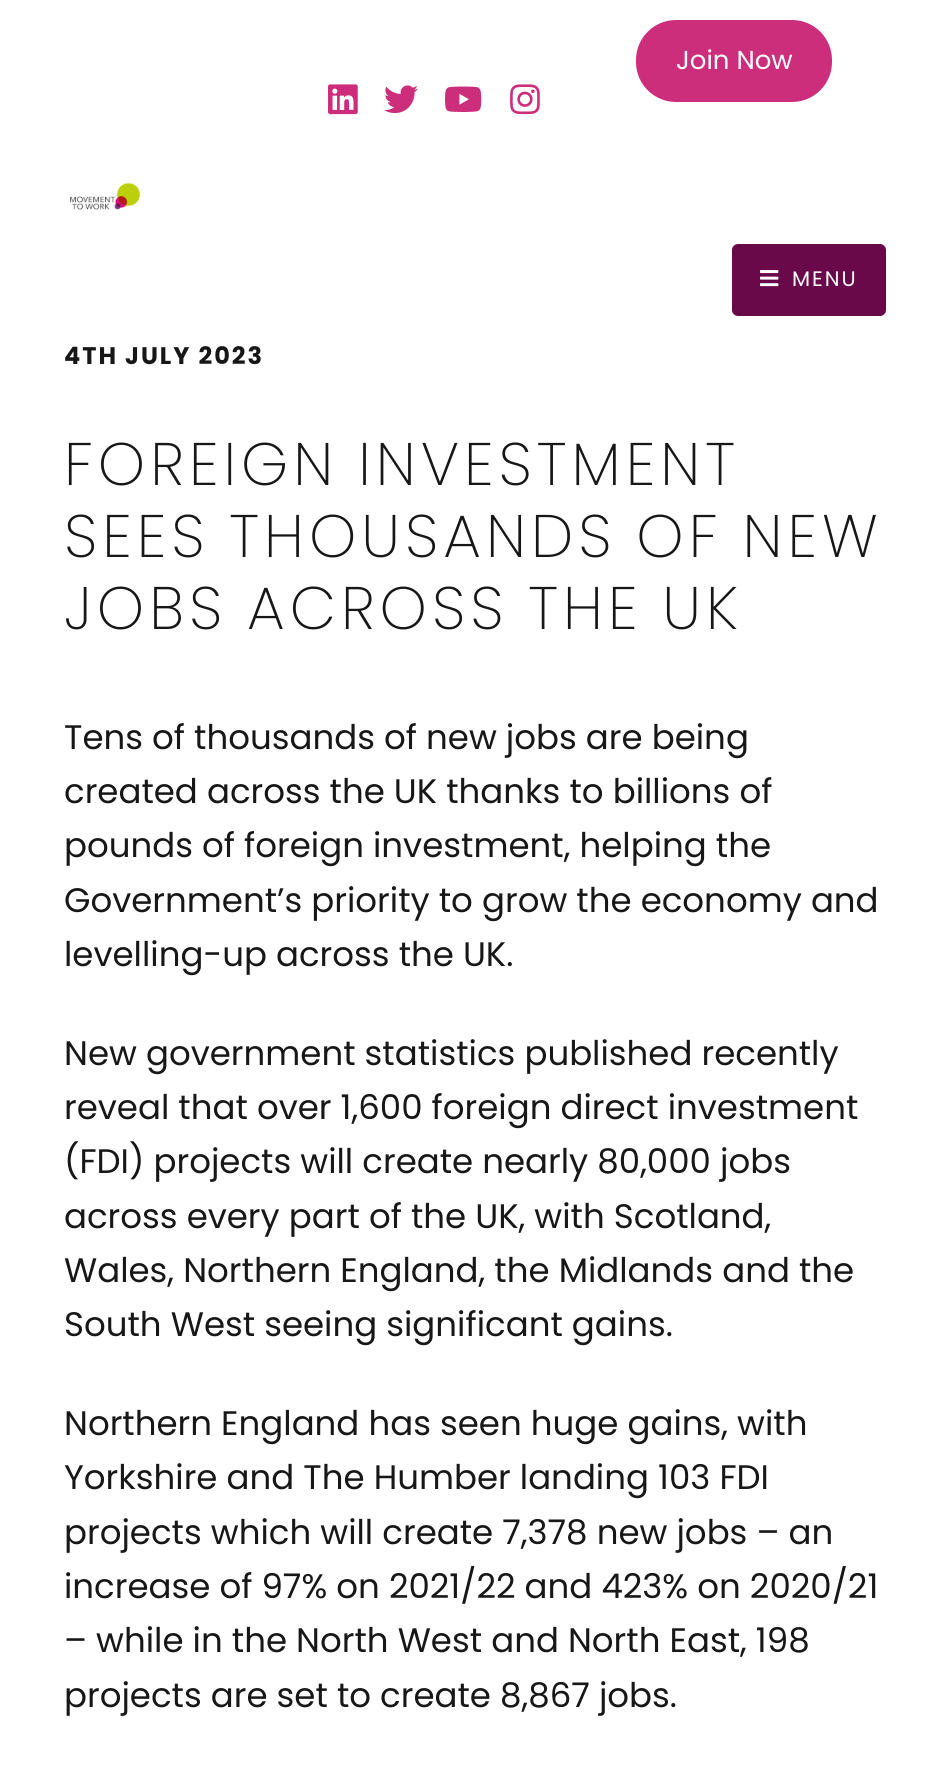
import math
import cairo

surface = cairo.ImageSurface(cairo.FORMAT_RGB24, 949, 1778)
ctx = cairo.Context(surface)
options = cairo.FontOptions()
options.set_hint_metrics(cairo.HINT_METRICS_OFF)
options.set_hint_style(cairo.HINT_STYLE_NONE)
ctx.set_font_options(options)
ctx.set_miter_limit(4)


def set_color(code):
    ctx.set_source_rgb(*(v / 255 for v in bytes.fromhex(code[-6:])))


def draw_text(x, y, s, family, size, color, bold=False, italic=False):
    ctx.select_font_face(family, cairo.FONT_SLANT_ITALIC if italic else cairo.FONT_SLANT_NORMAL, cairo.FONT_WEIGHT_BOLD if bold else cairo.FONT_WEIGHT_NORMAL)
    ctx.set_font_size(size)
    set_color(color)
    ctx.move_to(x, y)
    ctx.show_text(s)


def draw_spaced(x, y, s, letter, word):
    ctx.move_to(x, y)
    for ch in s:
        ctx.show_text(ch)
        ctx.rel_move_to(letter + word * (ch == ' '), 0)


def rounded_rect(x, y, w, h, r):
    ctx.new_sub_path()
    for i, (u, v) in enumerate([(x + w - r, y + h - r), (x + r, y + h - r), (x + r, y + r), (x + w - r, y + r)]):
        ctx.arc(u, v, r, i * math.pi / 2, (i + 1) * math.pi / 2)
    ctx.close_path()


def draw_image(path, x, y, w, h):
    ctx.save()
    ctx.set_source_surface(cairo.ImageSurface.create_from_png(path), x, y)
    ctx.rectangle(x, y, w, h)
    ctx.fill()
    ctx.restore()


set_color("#ffffff")
ctx.paint()
set_color("#cd2e7c")
rounded_rect(636, 20, 196, 82, 40)
ctx.fill()
draw_text(676, 69, "Join Now", "Poppins", 26, "#ffffff")
draw_image("assets/img1.png", 328, 84, 30, 31)
draw_image("assets/img2.png", 384, 85, 34, 29)
draw_image("assets/img3.png", 445, 86, 37, 26)
draw_image("assets/img4.png", 510, 84, 30, 31)
draw_image("assets/img5.png", 70, 182, 70, 28)
set_color("#69094a")
rounded_rect(732, 244, 154, 72, 6)
ctx.fill()
draw_image("assets/img6.png", 760, 270, 19, 17)
ctx.set_font_size(21)
set_color("#ffffff")
draw_spaced(792, 286, "MENU", 2, 0)
ctx.select_font_face("Poppins", cairo.FONT_SLANT_NORMAL, cairo.FONT_WEIGHT_BOLD)
ctx.set_font_size(24)
set_color("#171717")
draw_spaced(64, 364, "4TH JULY 2023", 2, 0)
ctx.select_font_face("Poppins ExtraLight")
ctx.set_font_size(60)
draw_spaced(64, 485, "FOREIGN INVESTMENT", 5, -2)
draw_spaced(64, 557, "SEES THOUSANDS OF NEW", 5, -2)
draw_spaced(64, 629, "JOBS ACROSS THE UK", 5, -2)
draw_text(64, 749, "Tens of thousands of new jobs are being", "Poppins", 34, "#171717")
draw_text(64, 803, "created across the UK thanks to billions of", "Poppins", 34, "#171717")
draw_text(64, 857, "pounds of foreign investment, helping the", "Poppins", 34, "#171717")
draw_text(64, 912, "Government’s priority to grow the economy and", "Poppins", 34, "#171717")
draw_text(64, 966, "levelling-up across the UK.", "Poppins", 34, "#171717")
draw_text(64, 1065, "New government statistics published recently", "Poppins", 34, "#171717")
draw_text(64, 1119, "reveal that over 1,600 foreign direct investment", "Poppins", 34, "#171717")
draw_text(64, 1173, "(FDI) projects will create nearly 80,000 jobs", "Poppins", 34, "#171717")
draw_text(64, 1228, "across every part of the UK, with Scotland,", "Poppins", 34, "#171717")
draw_text(64, 1282, "Wales, Northern England, the Midlands and the", "Poppins", 34, "#171717")
draw_text(64, 1336, "South West seeing significant gains.", "Poppins", 34, "#171717")
draw_text(64, 1435, "Northern England has seen huge gains, with", "Poppins", 34, "#171717")
draw_text(64, 1489, "Yorkshire and The Humber landing 103 FDI", "Poppins", 34, "#171717")
draw_text(64, 1544, "projects which will create 7,378 new jobs – an", "Poppins", 34, "#171717")
draw_text(64, 1598, "increase of 97% on 2021/22 and 423% on 2020/21", "Poppins", 34, "#171717")
draw_text(64, 1652, "– while in the North West and North East, 198", "Poppins", 34, "#171717")
draw_text(64, 1707, "projects are set to create 8,867 jobs.", "Poppins", 34, "#171717")
surface.write_to_png("output.png")
